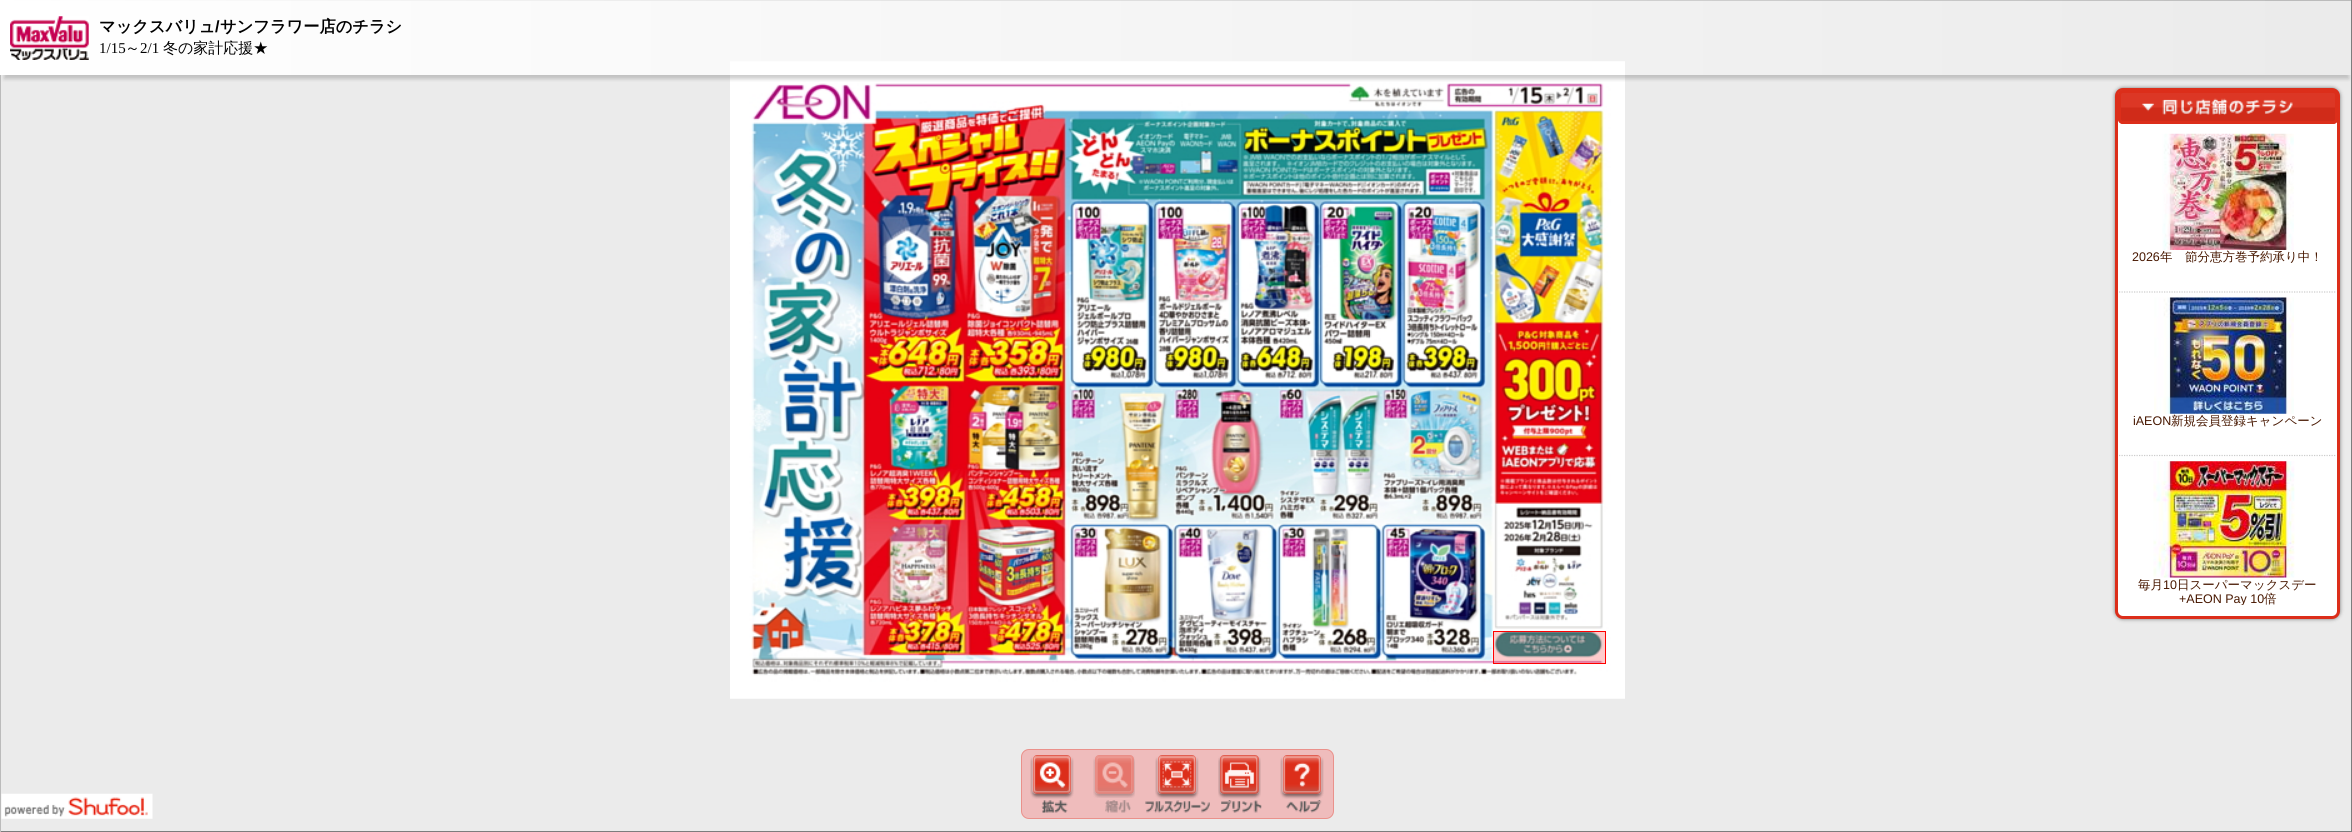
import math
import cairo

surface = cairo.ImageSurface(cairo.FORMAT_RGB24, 2352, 832)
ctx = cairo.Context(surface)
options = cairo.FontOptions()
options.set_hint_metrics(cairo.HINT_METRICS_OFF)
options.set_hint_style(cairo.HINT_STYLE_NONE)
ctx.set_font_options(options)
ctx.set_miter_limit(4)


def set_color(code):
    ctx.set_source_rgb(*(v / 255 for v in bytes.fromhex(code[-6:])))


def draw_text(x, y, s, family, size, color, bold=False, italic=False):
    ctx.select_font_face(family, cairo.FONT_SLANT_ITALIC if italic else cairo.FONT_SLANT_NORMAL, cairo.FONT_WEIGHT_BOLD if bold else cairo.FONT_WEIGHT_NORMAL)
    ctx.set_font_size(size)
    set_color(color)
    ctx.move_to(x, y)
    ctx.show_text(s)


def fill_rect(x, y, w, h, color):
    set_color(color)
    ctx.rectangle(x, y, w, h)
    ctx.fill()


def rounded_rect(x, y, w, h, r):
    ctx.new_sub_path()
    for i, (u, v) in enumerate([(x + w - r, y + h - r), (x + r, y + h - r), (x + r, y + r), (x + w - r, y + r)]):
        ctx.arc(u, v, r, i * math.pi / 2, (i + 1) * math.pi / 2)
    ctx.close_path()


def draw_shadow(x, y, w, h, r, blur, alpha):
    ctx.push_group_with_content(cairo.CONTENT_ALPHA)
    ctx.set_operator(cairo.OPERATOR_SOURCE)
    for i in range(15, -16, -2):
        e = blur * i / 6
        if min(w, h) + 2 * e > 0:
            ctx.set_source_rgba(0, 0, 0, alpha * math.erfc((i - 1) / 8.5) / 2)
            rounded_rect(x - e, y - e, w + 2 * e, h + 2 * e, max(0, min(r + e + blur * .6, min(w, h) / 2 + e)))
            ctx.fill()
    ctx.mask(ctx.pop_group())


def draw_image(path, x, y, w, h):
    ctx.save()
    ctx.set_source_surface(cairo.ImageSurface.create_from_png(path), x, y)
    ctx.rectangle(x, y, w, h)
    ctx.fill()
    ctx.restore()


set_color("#ebebeb")
ctx.paint()
fill_rect(14, 0, 2338, 1, "#bbbbbb")
fill_rect(2351, 0, 1, 832, "#7d7d7d")
fill_rect(0, 831, 2352, 1, "#7d7d7d")
fill_rect(0, 75, 1, 757, "#bbbbbb")
draw_image("assets/img1.png", 730, 61, 640, 638)
draw_image("assets/img2.png", 1370, 61, 255, 638)
ctx.set_source_rgba(1, 0, 0, 0.2)
ctx.rectangle(1493.5, 631.5, 112, 32)
ctx.fill_preserve()
set_color("#ff0000")
ctx.set_line_width(1)
ctx.stroke()
draw_image("assets/img3.png", 1, 793, 152, 26)
set_color("#efbcbc")
rounded_rect(1021, 749, 313, 70, 8)
ctx.fill()
rounded_rect(1021.5, 749.5, 312, 69, 7.5)
ctx.set_source_rgba(0.863, 0.18, 0.102, 0.3)
ctx.stroke()
set_color("#dc2e1a")
rounded_rect(1034, 756, 36, 37, 2.5)
ctx.fill()
rounded_rect(1033.5, 755.5, 37, 38, 3.5)
ctx.set_source_rgba(0.863, 0.18, 0.102, 0.65)
ctx.stroke()
draw_image("assets/img4.png", 1030, 756, 44, 43)
draw_image("assets/img5.png", 1030, 758, 44, 41)
draw_image("assets/img6.png", 1041, 800, 27, 13)
set_color("#e6756b")
rounded_rect(1096, 756, 37, 37, 2.5)
ctx.fill()
rounded_rect(1095.5, 755.5, 38, 38, 3.5)
ctx.set_source_rgba(0.902, 0.459, 0.42, 0.65)
ctx.stroke()
draw_image("assets/img7.png", 1093, 756, 42, 42)
draw_image("assets/img8.png", 1093, 759, 42, 39)
draw_image("assets/img9.png", 1105, 800, 26, 13)
set_color("#dc2e1a")
rounded_rect(1159, 756, 36, 37, 2.5)
ctx.fill()
rounded_rect(1158.5, 755.5, 37, 38, 3.5)
ctx.set_source_rgba(0.863, 0.18, 0.102, 0.65)
ctx.stroke()
draw_image("assets/img10.png", 1155, 756, 44, 43)
draw_image("assets/img11.png", 1155, 758, 44, 41)
draw_image("assets/img12.png", 1145, 800, 65, 13)
set_color("#dc2e1a")
rounded_rect(1221, 756, 37, 37, 2.5)
ctx.fill()
rounded_rect(1220.5, 755.5, 38, 38, 3.5)
ctx.set_source_rgba(0.863, 0.18, 0.102, 0.65)
ctx.stroke()
draw_image("assets/img13.png", 1218, 756, 43, 43)
draw_image("assets/img14.png", 1218, 758, 43, 41)
draw_image("assets/img15.png", 1221, 800, 41, 13)
set_color("#dc2e1a")
rounded_rect(1284, 756, 36, 37, 2.5)
ctx.fill()
rounded_rect(1283.5, 755.5, 37, 38, 3.5)
ctx.set_source_rgba(0.863, 0.18, 0.102, 0.65)
ctx.stroke()
draw_image("assets/img16.png", 1280, 756, 44, 43)
draw_image("assets/img17.png", 1280, 758, 44, 41)
draw_image("assets/img18.png", 1286, 800, 36, 13)
ctx.save()
ctx.rectangle(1, 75, 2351, 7)
ctx.clip()
set_color("#808080")
draw_shadow(4, 11, 2345, 68, 0, 2, 0.4)
ctx.restore()
gradient = cairo.LinearGradient(0, 38, 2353, 38)
gradient.add_color_stop_rgba(0, 1, 1, 1, 1)
gradient.add_color_stop_rgba(1, 1, 1, 1, 0)
ctx.set_source(gradient)
ctx.rectangle(0, 0, 2265, 75)
ctx.fill()
draw_image("assets/img19.png", 10, 16, 79, 44)
draw_text(99, 32, "マックスバリュ", "WenQuanYi Zen Hei", 16.25, "#000000", bold=True)
draw_text(215, 32, "/", "Liberation Sans", 16.25, "#000000", bold=True)
draw_text(220, 32, "サンフラワー店のチラシ", "WenQuanYi Zen Hei", 16.25, "#000000", bold=True)
draw_text(99, 53, "1/15", "Liberation Serif", 15, "#000000")
draw_text(125, 53, "～", "WenQuanYi Zen Hei Medium", 15, "#000000")
draw_text(140, 53, "2/1", "Liberation Serif", 15, "#000000")
draw_text(163, 53, "冬の家計応援★", "WenQuanYi Zen Hei Medium", 15, "#000000")
set_color("#000000")
draw_shadow(2115, 88, 225, 531, 8, 2, 0.5)
set_color("#ffffff")
rounded_rect(2116.5, 89.5, 222, 528, 6.5)
ctx.fill_preserve()
set_color("#dc2e1a")
ctx.set_line_width(3)
ctx.stroke()
rounded_rect(2118, 90, 220, 34, 5)
ctx.fill()
draw_image("assets/img20.png", 2118, 90, 217, 34)
rounded_rect(2119.5, 91.5, 217, 31, 3.5)
ctx.stroke()
ctx.new_path()
ctx.move_to(2119, 292)
ctx.line_to(2336, 292)
set_color("#cccccc")
ctx.set_line_width(1.2)
ctx.set_dash([1.25, 1.25])
ctx.stroke()
draw_image("assets/img21.png", 2162, 133, 132, 117)
draw_text(2132, 261, "2026", "Liberation Sans", 12.5, "#471700")
draw_text(2160, 261, "年　節分恵方巻予約承り中！", "WenQuanYi Zen Hei Medium", 12.5, "#471700")
ctx.new_path()
ctx.move_to(2119, 455.5)
ctx.line_to(2336, 455.5)
set_color("#cccccc")
ctx.stroke()
draw_image("assets/img22.png", 2154, 297, 140, 117)
draw_text(2133, 425, "iAEON", "Liberation Sans", 12.5, "#471700")
draw_text(2171, 425, "新規会員登録キャンペーン", "WenQuanYi Zen Hei Medium", 12.5, "#471700")
draw_image("assets/img23.png", 2153, 461, 142, 117)
draw_text(2138, 589, "毎月", "WenQuanYi Zen Hei Medium", 12.5, "#471700")
draw_text(2163, 589, "10", "Liberation Sans", 12.5, "#471700")
draw_text(2177, 589, "日スーパーマックスデー", "WenQuanYi Zen Hei Medium", 12.5, "#471700")
ctx.save()
ctx.rectangle(2119, 456, 217, 149)
ctx.clip()
draw_text(2179, 603, "+AEON Pay 10", "Liberation Sans", 12.5, "#471700")
ctx.restore()
draw_text(2264, 603, "倍", "WenQuanYi Zen Hei Medium", 12.5, "#471700")
surface.write_to_png("output.png")
